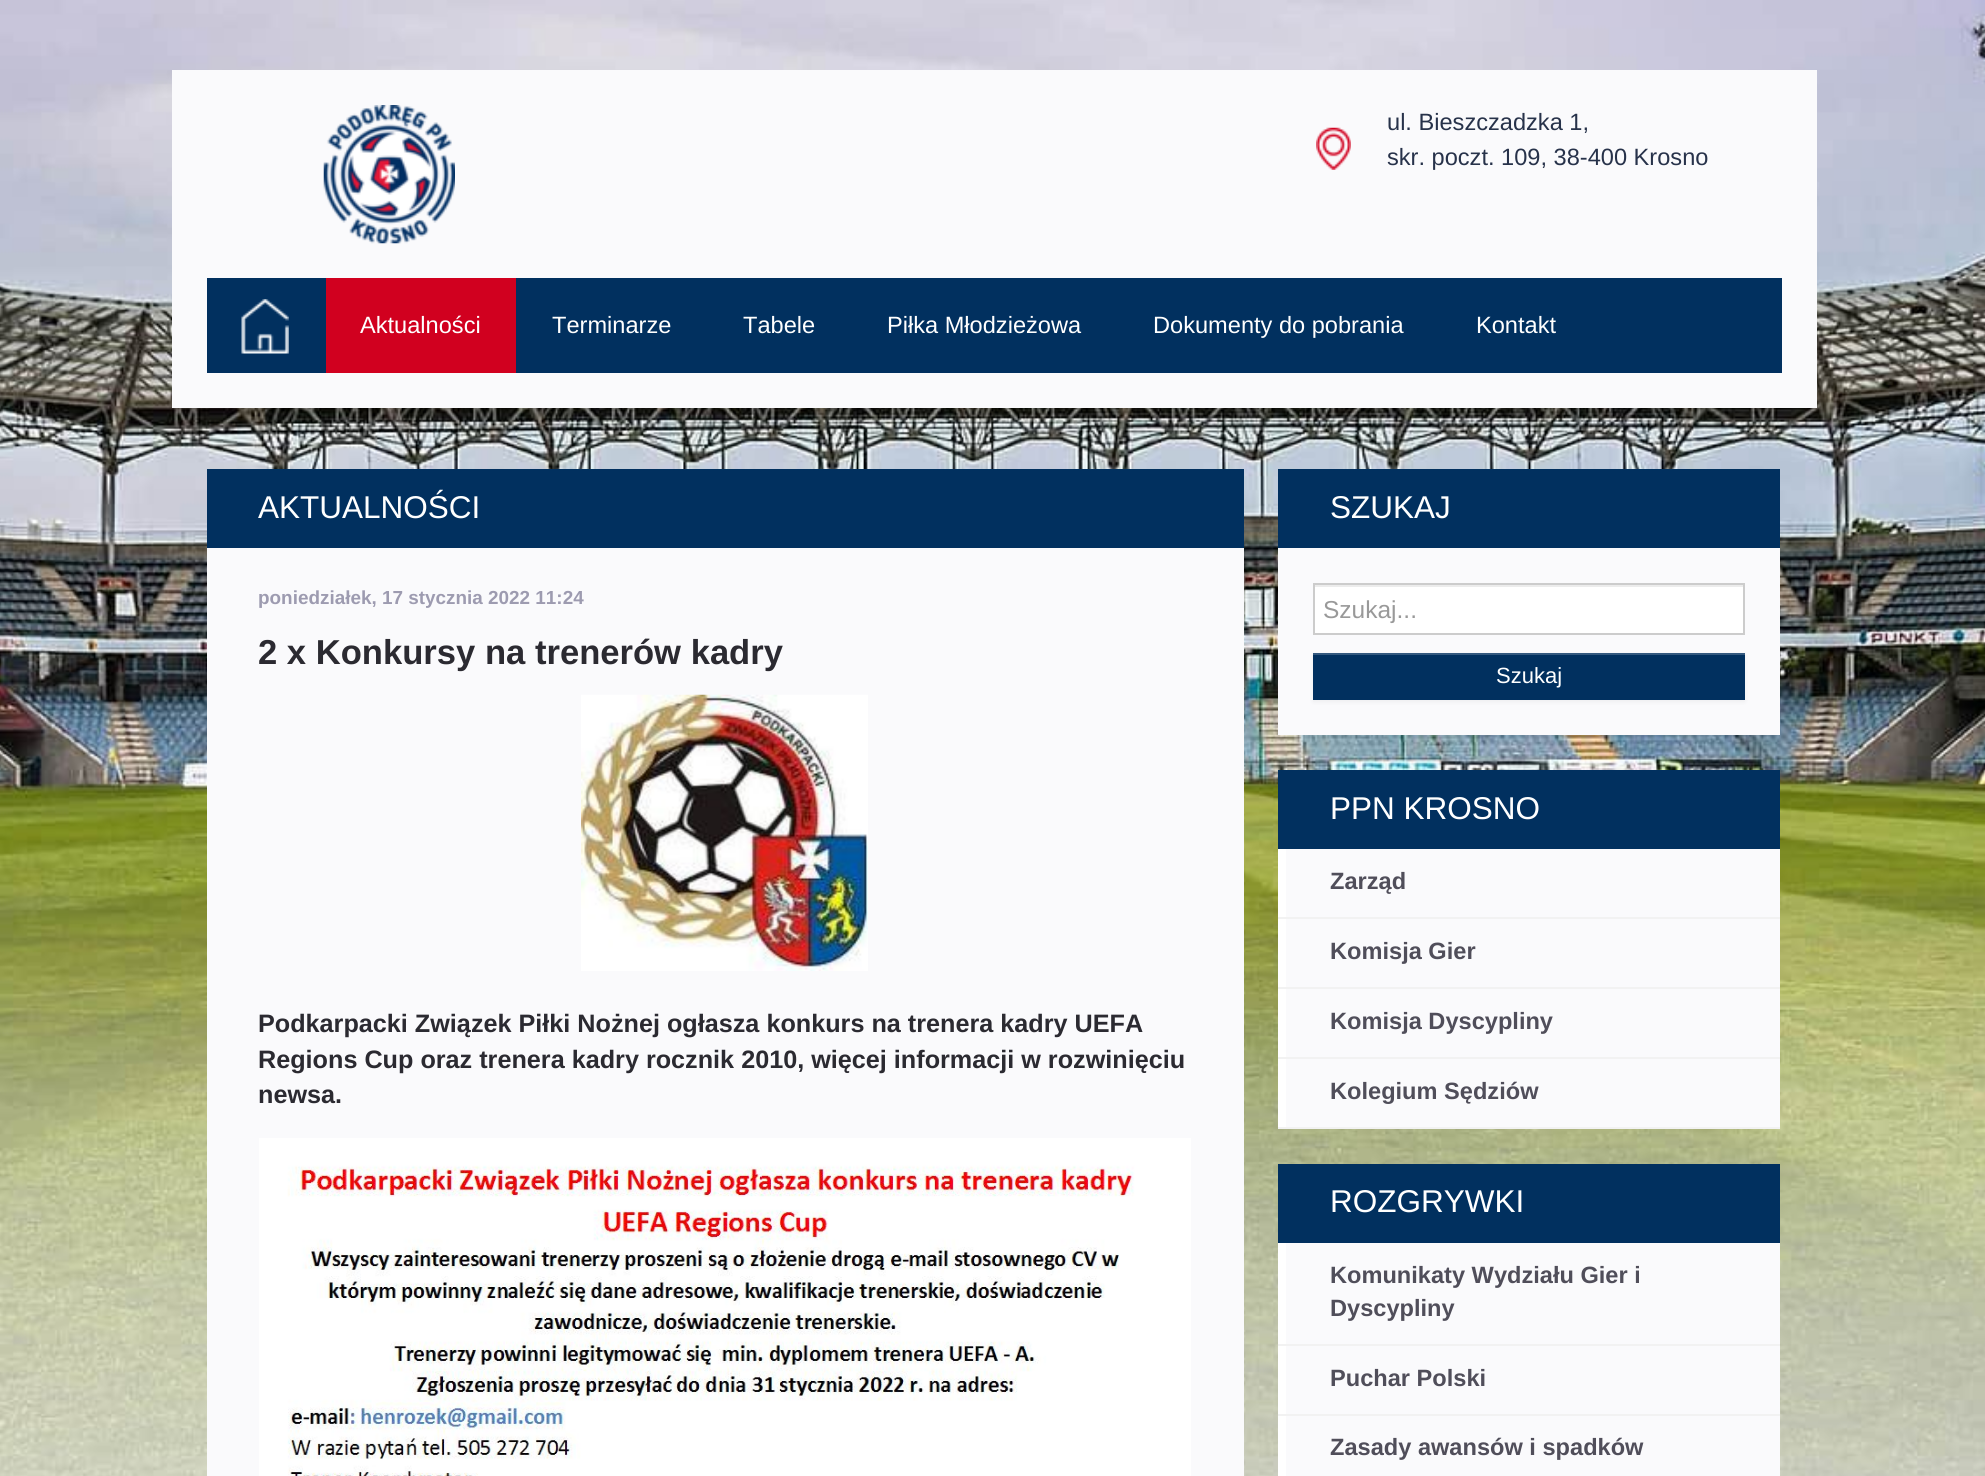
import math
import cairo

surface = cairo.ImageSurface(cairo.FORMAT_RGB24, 1985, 1476)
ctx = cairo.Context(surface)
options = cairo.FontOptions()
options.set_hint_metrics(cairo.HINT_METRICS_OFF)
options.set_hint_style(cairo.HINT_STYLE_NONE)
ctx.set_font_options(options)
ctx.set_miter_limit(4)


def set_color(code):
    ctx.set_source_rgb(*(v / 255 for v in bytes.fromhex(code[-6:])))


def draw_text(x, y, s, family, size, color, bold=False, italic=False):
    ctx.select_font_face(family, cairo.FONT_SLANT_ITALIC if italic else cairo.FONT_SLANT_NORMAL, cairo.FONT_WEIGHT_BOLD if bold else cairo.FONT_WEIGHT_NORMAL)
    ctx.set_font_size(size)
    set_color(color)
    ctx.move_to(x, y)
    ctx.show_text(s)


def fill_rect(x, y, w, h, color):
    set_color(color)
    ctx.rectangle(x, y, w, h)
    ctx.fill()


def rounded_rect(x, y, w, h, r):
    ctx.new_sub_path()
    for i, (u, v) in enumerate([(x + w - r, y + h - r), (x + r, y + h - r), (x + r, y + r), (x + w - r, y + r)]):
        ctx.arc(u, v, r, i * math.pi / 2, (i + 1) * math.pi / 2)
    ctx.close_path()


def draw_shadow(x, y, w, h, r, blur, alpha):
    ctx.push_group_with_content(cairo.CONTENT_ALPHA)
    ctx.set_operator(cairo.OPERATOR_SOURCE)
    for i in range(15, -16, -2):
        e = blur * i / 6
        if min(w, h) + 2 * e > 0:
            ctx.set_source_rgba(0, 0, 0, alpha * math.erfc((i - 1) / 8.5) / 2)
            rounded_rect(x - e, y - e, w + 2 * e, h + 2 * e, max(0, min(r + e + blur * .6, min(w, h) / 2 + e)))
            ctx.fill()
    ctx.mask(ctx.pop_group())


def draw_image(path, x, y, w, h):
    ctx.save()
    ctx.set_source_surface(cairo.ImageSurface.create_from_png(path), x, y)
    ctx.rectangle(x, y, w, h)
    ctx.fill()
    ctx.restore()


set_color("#ffffff")
ctx.paint()
draw_image("assets/img1.png", 0, 0, 1985, 1476)
fill_rect(172, 70, 1645, 338, "#fafafc")
draw_image("assets/img2.png", 323, 105, 132, 139)
draw_image("assets/img3.png", 1316, 127, 35, 43)
draw_text(1387, 130, "ul. Bieszczadzka 1,", "Liberation Sans", 23.6, "#27324a")
draw_text(1387, 165, "skr. poczt. 109, 38-400 Krosno", "Liberation Sans", 23.6, "#27324a")
fill_rect(207, 278, 1575, 95, "#01305f")
draw_image("assets/img4.png", 241, 299, 48, 55)
fill_rect(326, 278, 190, 95, "#d1001f")
draw_text(360, 333, "Aktualności", "Liberation Sans", 23.6, "#ffffff")
draw_text(552, 333, "Terminarze", "Liberation Sans", 23.6, "#ffffff")
draw_text(743, 333, "Tabele", "Liberation Sans", 23.6, "#ffffff")
draw_text(887, 333, "Piłka Młodzieżowa", "Liberation Sans", 23.6, "#ffffff")
draw_text(1153, 333, "Dokumenty do pobrania", "Liberation Sans", 23.6, "#ffffff")
draw_text(1476, 333, "Kontakt", "Liberation Sans", 23.6, "#ffffff")
fill_rect(207, 548, 1037, 928, "#fafafc")
fill_rect(207, 469, 1037, 79, "#01305f")
draw_text(258, 518, "AKTUALNOŚCI", "Liberation Sans", 31.5, "#ffffff")
draw_text(258, 604, "poniedziałek, 17 stycznia 2022 11:24", "Liberation Sans", 18.9, "#9d9bb0", bold=True)
draw_text(258, 664, "2 x Konkursy na trenerów kadry", "Liberation Sans", 34.6, "#2b2a31", bold=True)
draw_image("assets/img5.png", 581, 694, 287, 277)
draw_text(258, 1032, "Podkarpacki Związek Piłki Nożnej ogłasza konkurs na trenera kadry UEFA", "Liberation Sans", 25.2, "#2b2a31", bold=True)
draw_text(258, 1068, "Regions Cup oraz trenera kadry rocznik 2010, więcej informacji w rozwinięciu", "Liberation Sans", 25.2, "#2b2a31", bold=True)
draw_text(258, 1103, "newsa.", "Liberation Sans", 25.2, "#2b2a31", bold=True)
draw_image("assets/img6.png", 259, 1138, 932, 338)
fill_rect(1278, 548, 502, 187, "#fafafc")
fill_rect(1278, 469, 502, 79, "#01305f")
draw_text(1330, 518, "SZUKAJ", "Liberation Sans", 31.5, "#ffffff")
fill_rect(1315, 587, 428, 46, "#ffffff")
fill_rect(1314, 585, 429, 2, "#ececec")
ctx.rectangle(1314, 584, 430, 50)
set_color("#cccccc")
ctx.stroke()
draw_text(1323, 618, "Szukaj...", "Liberation Sans", 24.5, "#999999")
set_color("#000000")
draw_shadow(1313, 655, 432, 47, 0, 2, 0.05)
fill_rect(1313, 655, 432, 45, "#01305f")
fill_rect(1313, 653, 432, 2, "#34597f")
draw_text(1496, 683, "Szukaj", "Liberation Sans", 22, "#ffffff")
fill_rect(1286, 849, 494, 278, "#fafafc")
fill_rect(1278, 770, 502, 79, "#01305f")
draw_text(1330, 819, "PPN KROSNO", "Liberation Sans", 31.5, "#ffffff")
fill_rect(1278, 917, 502, 2, "#f2f2f2")
fill_rect(1278, 849, 8, 68, "#ffffff")
draw_text(1330, 889, "Zarząd", "Liberation Sans", 23.6, "#504e5a", bold=True)
fill_rect(1278, 987, 502, 2, "#f2f2f2")
fill_rect(1278, 919, 8, 68, "#ffffff")
draw_text(1330, 959, "Komisja Gier", "Liberation Sans", 23.6, "#504e5a", bold=True)
fill_rect(1278, 1057, 502, 2, "#f2f2f2")
fill_rect(1278, 989, 8, 68, "#ffffff")
draw_text(1330, 1029, "Komisja Dyscypliny", "Liberation Sans", 23.6, "#504e5a", bold=True)
fill_rect(1278, 1127, 502, 2, "#f2f2f2")
fill_rect(1278, 1059, 8, 68, "#ffffff")
draw_text(1330, 1099, "Kolegium Sędziów", "Liberation Sans", 23.6, "#504e5a", bold=True)
fill_rect(1286, 1243, 494, 233, "#fafafc")
fill_rect(1278, 1164, 502, 79, "#01305f")
draw_text(1330, 1212, "ROZGRYWKI", "Liberation Sans", 31.5, "#ffffff")
fill_rect(1278, 1344, 502, 2, "#f2f2f2")
fill_rect(1278, 1243, 8, 101, "#ffffff")
draw_text(1330, 1283, "Komunikaty Wydziału Gier i", "Liberation Sans", 23.6, "#504e5a", bold=True)
draw_text(1330, 1316, "Dyscypliny", "Liberation Sans", 23.6, "#504e5a", bold=True)
fill_rect(1278, 1414, 502, 2, "#f2f2f2")
fill_rect(1278, 1346, 8, 68, "#ffffff")
draw_text(1330, 1386, "Puchar Polski", "Liberation Sans", 23.6, "#504e5a", bold=True)
fill_rect(1278, 1416, 8, 60, "#ffffff")
draw_text(1330, 1455, "Zasady awansów i spadków", "Liberation Sans", 23.6, "#504e5a", bold=True)
surface.write_to_png("output.png")
